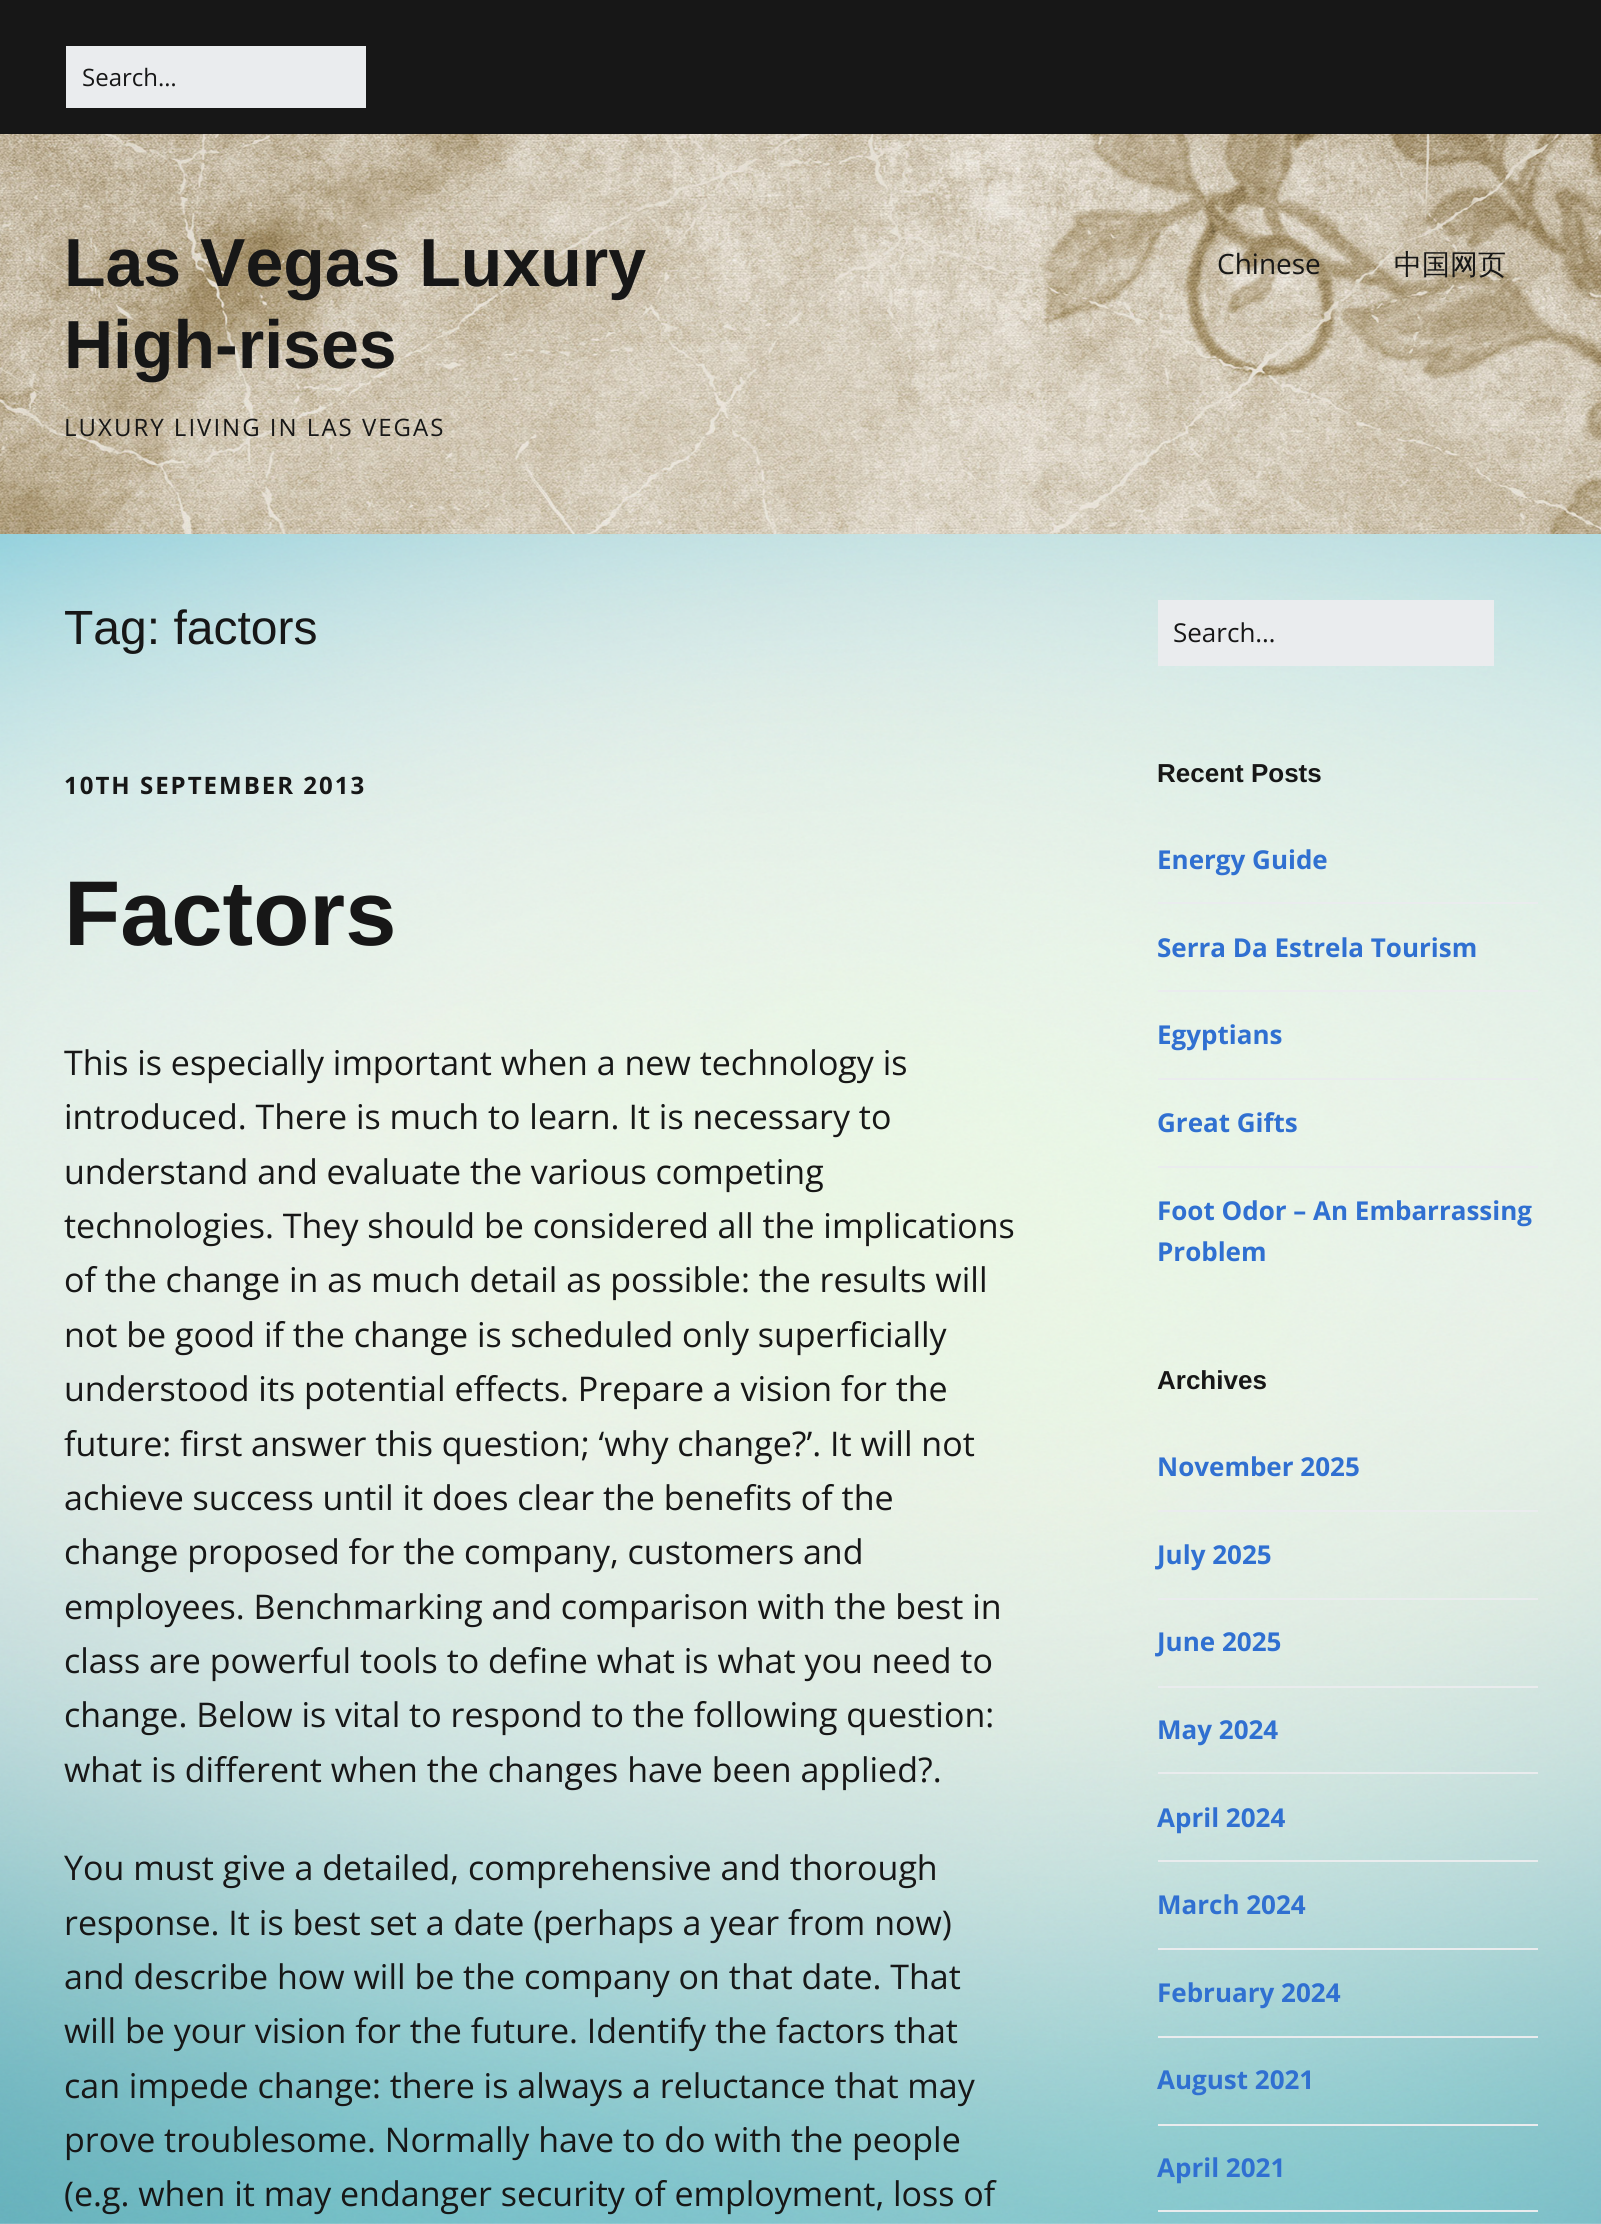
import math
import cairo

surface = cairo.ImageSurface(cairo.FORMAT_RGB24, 1601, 2224)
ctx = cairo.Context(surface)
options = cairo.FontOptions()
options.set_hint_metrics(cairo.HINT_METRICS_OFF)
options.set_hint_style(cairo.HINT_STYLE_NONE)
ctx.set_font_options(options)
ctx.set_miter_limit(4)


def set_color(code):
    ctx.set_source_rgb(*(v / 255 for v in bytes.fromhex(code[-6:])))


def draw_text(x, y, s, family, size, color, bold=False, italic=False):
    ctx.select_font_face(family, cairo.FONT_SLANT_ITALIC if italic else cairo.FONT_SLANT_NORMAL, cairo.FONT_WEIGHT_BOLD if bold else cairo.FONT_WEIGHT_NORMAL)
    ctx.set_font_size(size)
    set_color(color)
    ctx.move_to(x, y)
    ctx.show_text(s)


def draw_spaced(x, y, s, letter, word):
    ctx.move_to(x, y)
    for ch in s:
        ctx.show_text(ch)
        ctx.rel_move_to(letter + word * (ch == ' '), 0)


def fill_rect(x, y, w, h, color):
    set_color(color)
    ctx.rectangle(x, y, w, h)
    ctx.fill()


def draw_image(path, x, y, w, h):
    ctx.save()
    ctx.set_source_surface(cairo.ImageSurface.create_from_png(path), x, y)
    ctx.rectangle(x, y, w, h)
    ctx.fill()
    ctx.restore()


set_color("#ffffff")
ctx.paint()
fill_rect(0, 0, 1601, 134, "#171717")
fill_rect(66, 46, 300, 62, "#eaecee")
draw_text(82, 86, "Search…", "Open Sans", 24, "#171717")
draw_image("assets/img1.png", 0, 134, 1601, 400)
draw_text(64, 286, "Las Vegas Luxury", "Liberation Sans", 68, "#171717", bold=True)
draw_text(64, 368, "High-rises", "Liberation Sans", 68, "#171717", bold=True)
ctx.select_font_face("Open Sans")
ctx.set_font_size(24)
draw_spaced(64, 436, "LUXURY LIVING IN LAS VEGAS", 2, 0)
draw_text(1217, 274, "Chinese", "Open Sans", 28, "#171717")
draw_text(1394, 274, "中国网页", "WenQuanYi Zen Hei Medium", 28, "#171717")
draw_image("assets/img2.png", 0, 534, 1601, 1690)
draw_text(64, 644, "Tag: factors", "Liberation Sans", 48, "#171717")
ctx.select_font_face("Open Sans", cairo.FONT_SLANT_NORMAL, cairo.FONT_WEIGHT_BOLD)
ctx.set_font_size(24)
draw_spaced(64, 794, "10TH SEPTEMBER 2013", 2, 0)
draw_text(64, 945, "Factors", "Liberation Sans", 92, "#171717", bold=True)
draw_text(64, 1075, "This is especially important when a new technology is", "Open Sans", 34, "#171717")
draw_text(64, 1129, "introduced. There is much to learn. It is necessary to", "Open Sans", 34, "#171717")
draw_text(64, 1184, "understand and evaluate the various competing", "Open Sans", 34, "#171717")
draw_text(64, 1238, "technologies. They should be considered all the implications", "Open Sans", 34, "#171717")
draw_text(64, 1292, "of the change in as much detail as possible: the results will", "Open Sans", 34, "#171717")
draw_text(64, 1347, "not be good if the change is scheduled only superficially", "Open Sans", 34, "#171717")
draw_text(64, 1401, "understood its potential effects. Prepare a vision for the", "Open Sans", 34, "#171717")
draw_text(64, 1456, "future: first answer this question; ‘why change?’. It will not", "Open Sans", 34, "#171717")
draw_text(64, 1510, "achieve success until it does clear the benefits of the", "Open Sans", 34, "#171717")
draw_text(64, 1564, "change proposed for the company, customers and", "Open Sans", 34, "#171717")
draw_text(64, 1619, "employees. Benchmarking and comparison with the best in", "Open Sans", 34, "#171717")
draw_text(64, 1673, "class are powerful tools to define what is what you need to", "Open Sans", 34, "#171717")
draw_text(64, 1727, "change. Below is vital to respond to the following question:", "Open Sans", 34, "#171717")
draw_text(64, 1782, "what is different when the changes have been applied?.", "Open Sans", 34, "#171717")
draw_text(64, 1880, "You must give a detailed, comprehensive and thorough", "Open Sans", 34, "#171717")
draw_text(64, 1935, "response. It is best set a date (perhaps a year from now)", "Open Sans", 34, "#171717")
draw_text(64, 1989, "and describe how will be the company on that date. That", "Open Sans", 34, "#171717")
draw_text(64, 2043, "will be your vision for the future. Identify the factors that", "Open Sans", 34, "#171717")
draw_text(64, 2098, "can impede change: there is always a reluctance that may", "Open Sans", 34, "#171717")
draw_text(64, 2152, "prove troublesome. Normally have to do with the people", "Open Sans", 34, "#171717")
draw_text(64, 2206, "(e.g. when it may endanger security of employment, loss of", "Open Sans", 34, "#171717")
fill_rect(1158, 600, 336, 66, "#eaecee")
draw_text(1173, 642, "Search…", "Open Sans", 26, "#171717")
draw_text(1157, 782, "Recent Posts", "Liberation Sans", 26, "#171717", bold=True)
fill_rect(1158, 902, 380, 2, "#eaecee")
draw_text(1157, 869, "Energy Guide", "Open Sans", 26, "#3070d1", bold=True)
fill_rect(1158, 990, 380, 2, "#eaecee")
draw_text(1157, 957, "Serra Da Estrela Tourism", "Open Sans", 26, "#3070d1", bold=True)
fill_rect(1158, 1078, 380, 2, "#eaecee")
draw_text(1157, 1044, "Egyptians", "Open Sans", 26, "#3070d1", bold=True)
fill_rect(1158, 1166, 380, 2, "#eaecee")
draw_text(1157, 1132, "Great Gifts", "Open Sans", 26, "#3070d1", bold=True)
draw_text(1157, 1220, "Foot Odor – An Embarrassing", "Open Sans", 26, "#3070d1", bold=True)
draw_text(1157, 1261, "Problem", "Open Sans", 26, "#3070d1", bold=True)
draw_text(1157, 1389, "Archives", "Liberation Sans", 26, "#171717", bold=True)
fill_rect(1158, 1510, 380, 2, "#eaecee")
draw_text(1157, 1476, "November 2025", "Open Sans", 26, "#3070d1", bold=True)
fill_rect(1158, 1598, 380, 2, "#eaecee")
draw_text(1157, 1564, "July 2025", "Open Sans", 26, "#3070d1", bold=True)
fill_rect(1158, 1686, 380, 2, "#eaecee")
draw_text(1157, 1651, "June 2025", "Open Sans", 26, "#3070d1", bold=True)
fill_rect(1158, 1772, 380, 2, "#eaecee")
draw_text(1157, 1739, "May 2024", "Open Sans", 26, "#3070d1", bold=True)
fill_rect(1158, 1860, 380, 2, "#eaecee")
draw_text(1157, 1827, "April 2024", "Open Sans", 26, "#3070d1", bold=True)
fill_rect(1158, 1948, 380, 2, "#eaecee")
draw_text(1157, 1914, "March 2024", "Open Sans", 26, "#3070d1", bold=True)
fill_rect(1158, 2036, 380, 2, "#eaecee")
draw_text(1157, 2002, "February 2024", "Open Sans", 26, "#3070d1", bold=True)
fill_rect(1158, 2124, 380, 2, "#eaecee")
draw_text(1157, 2089, "August 2021", "Open Sans", 26, "#3070d1", bold=True)
fill_rect(1158, 2210, 380, 2, "#eaecee")
draw_text(1157, 2177, "April 2021", "Open Sans", 26, "#3070d1", bold=True)
surface.write_to_png("output.png")
